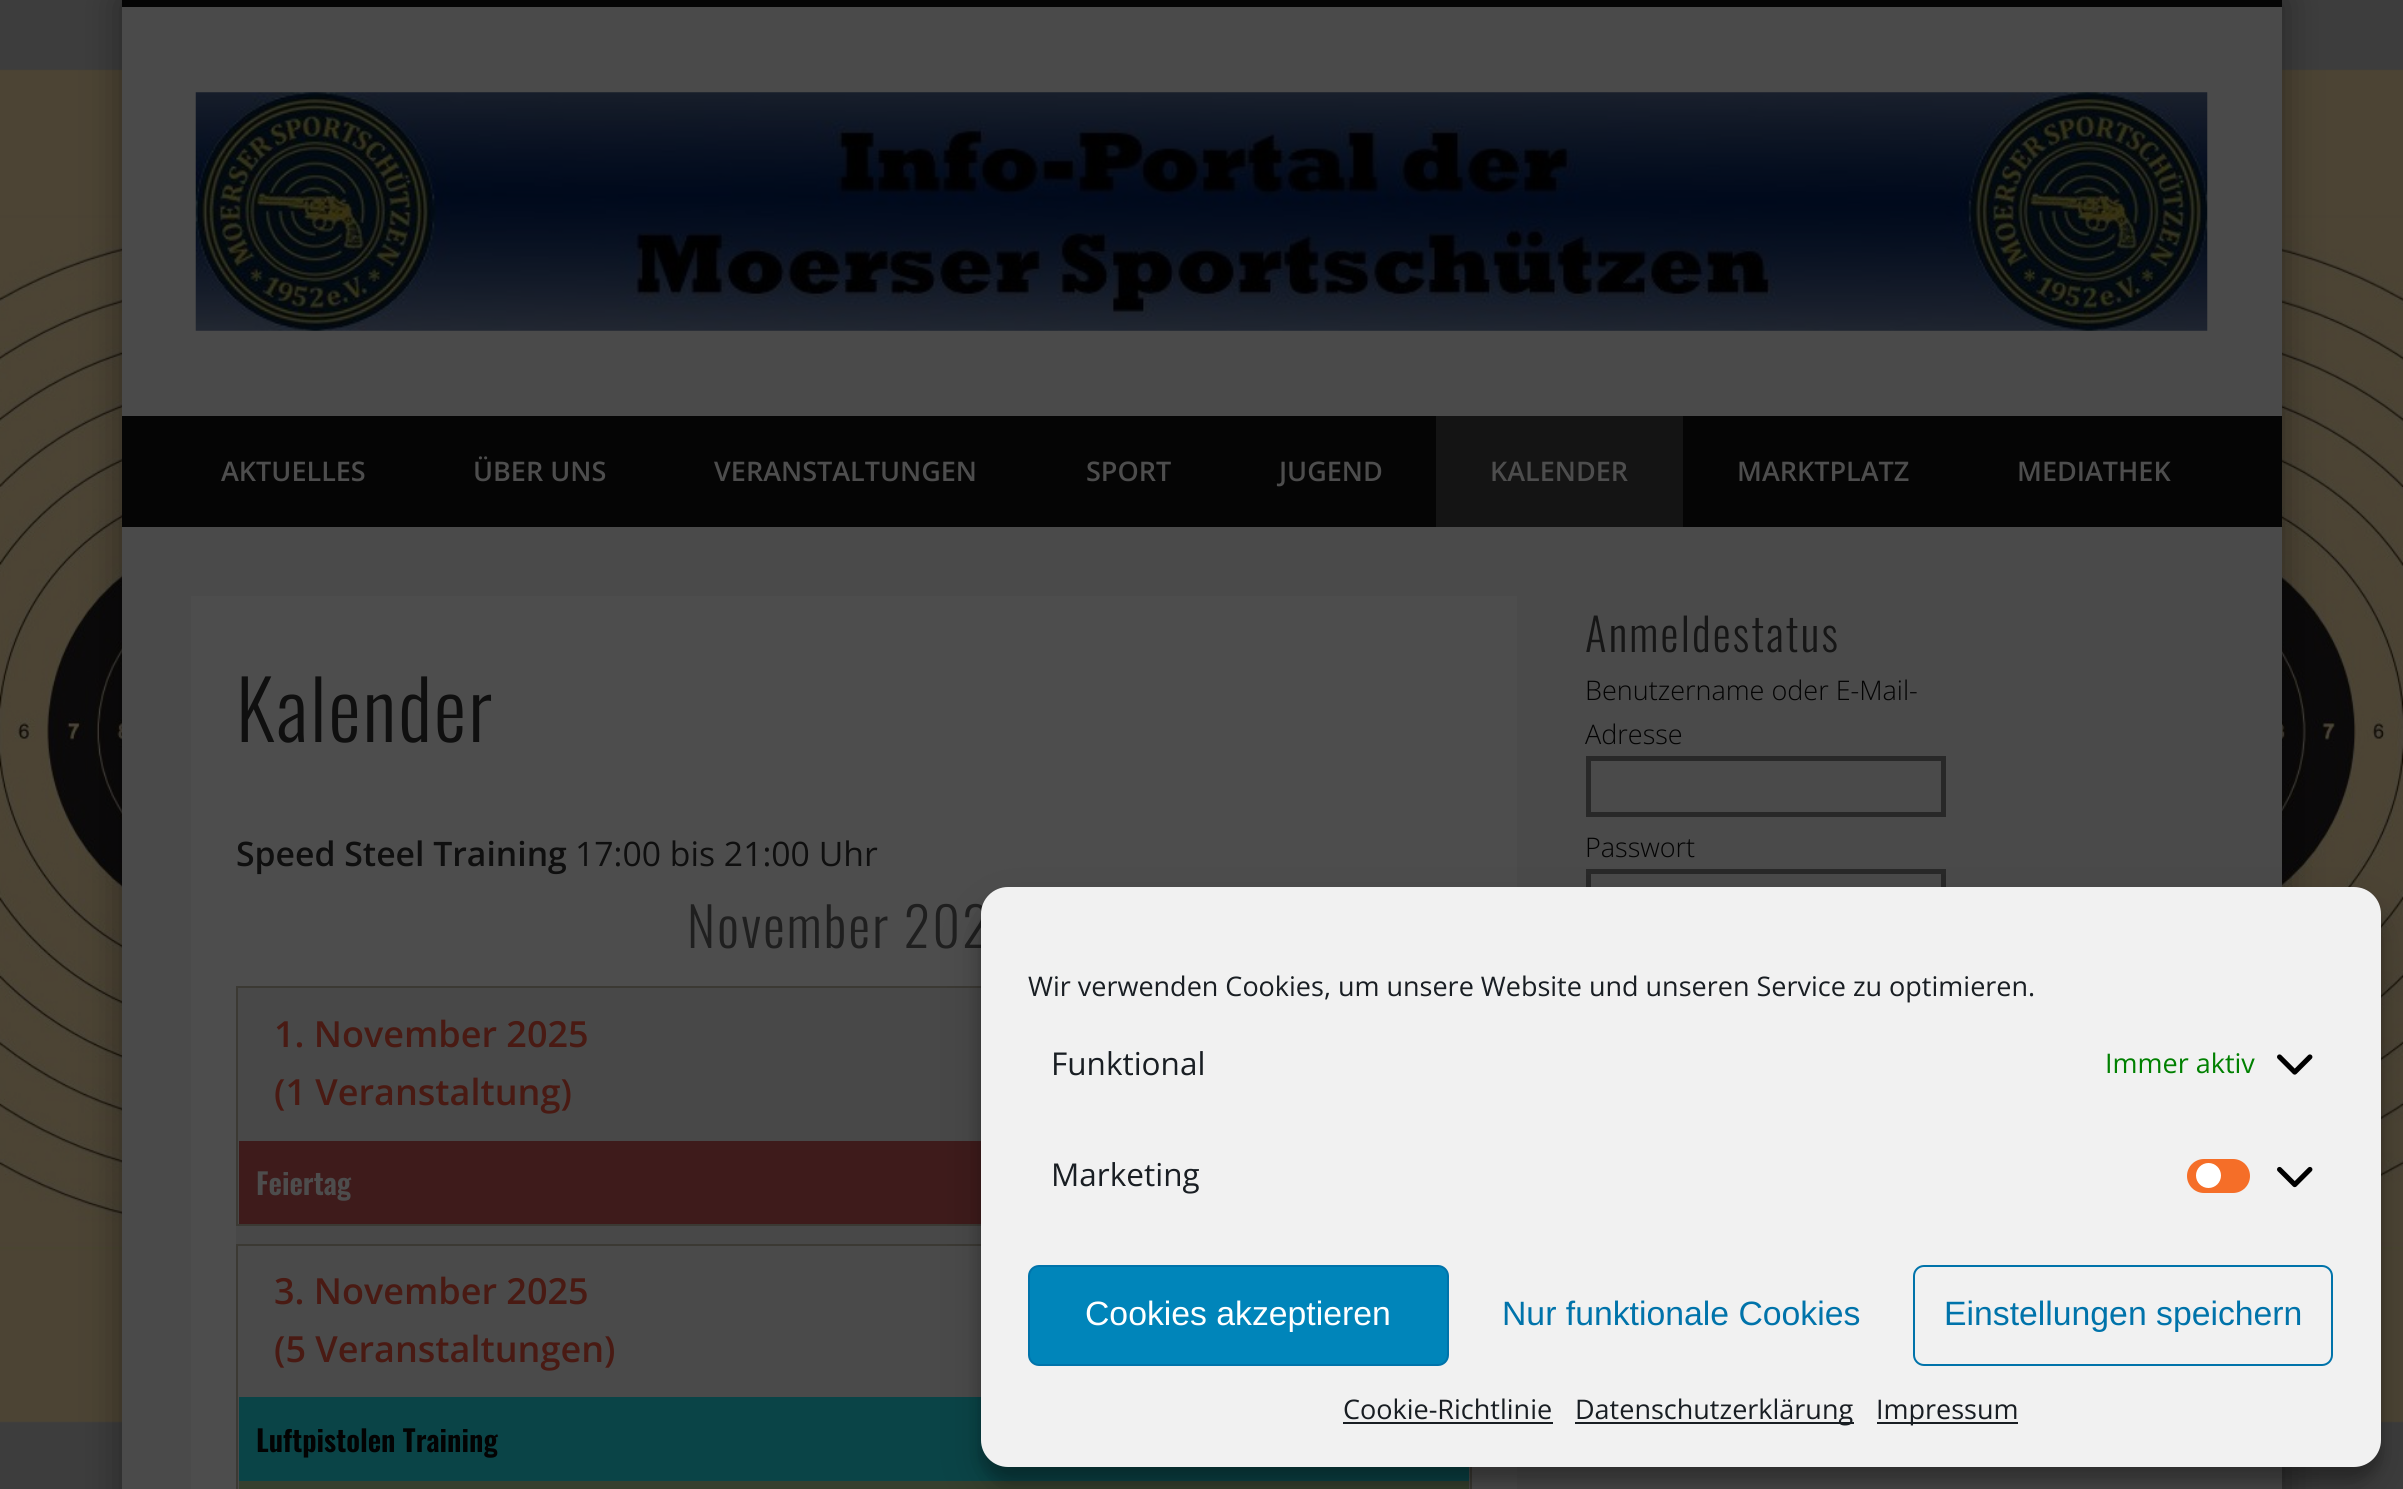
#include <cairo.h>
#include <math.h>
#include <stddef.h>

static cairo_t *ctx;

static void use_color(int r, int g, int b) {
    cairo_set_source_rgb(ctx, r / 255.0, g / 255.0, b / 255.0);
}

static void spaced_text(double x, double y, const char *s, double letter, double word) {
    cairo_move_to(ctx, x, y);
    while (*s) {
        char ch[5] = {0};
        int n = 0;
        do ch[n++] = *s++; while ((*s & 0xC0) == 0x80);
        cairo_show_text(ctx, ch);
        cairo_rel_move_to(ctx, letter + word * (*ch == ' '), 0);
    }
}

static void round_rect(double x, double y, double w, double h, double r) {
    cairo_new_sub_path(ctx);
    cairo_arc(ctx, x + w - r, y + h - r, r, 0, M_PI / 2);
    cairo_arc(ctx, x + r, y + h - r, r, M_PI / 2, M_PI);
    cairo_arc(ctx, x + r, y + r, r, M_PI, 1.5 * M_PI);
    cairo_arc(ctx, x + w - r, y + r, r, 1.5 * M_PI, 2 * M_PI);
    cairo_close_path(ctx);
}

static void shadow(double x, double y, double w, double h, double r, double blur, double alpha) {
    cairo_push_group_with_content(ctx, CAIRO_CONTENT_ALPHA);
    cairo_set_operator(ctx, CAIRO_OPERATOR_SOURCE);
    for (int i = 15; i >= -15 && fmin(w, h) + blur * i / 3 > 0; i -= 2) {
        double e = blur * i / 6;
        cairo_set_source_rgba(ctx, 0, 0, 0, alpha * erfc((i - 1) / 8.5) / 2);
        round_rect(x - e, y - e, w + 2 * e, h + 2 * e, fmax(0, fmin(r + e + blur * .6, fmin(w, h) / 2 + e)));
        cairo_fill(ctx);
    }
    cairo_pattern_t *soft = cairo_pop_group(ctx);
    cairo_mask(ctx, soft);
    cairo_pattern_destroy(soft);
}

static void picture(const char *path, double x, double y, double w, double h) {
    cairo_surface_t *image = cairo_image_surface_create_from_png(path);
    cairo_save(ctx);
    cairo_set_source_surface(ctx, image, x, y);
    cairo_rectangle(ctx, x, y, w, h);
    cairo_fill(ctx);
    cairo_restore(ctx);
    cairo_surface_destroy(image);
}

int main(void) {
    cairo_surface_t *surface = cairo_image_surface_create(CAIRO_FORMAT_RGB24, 2403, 1489);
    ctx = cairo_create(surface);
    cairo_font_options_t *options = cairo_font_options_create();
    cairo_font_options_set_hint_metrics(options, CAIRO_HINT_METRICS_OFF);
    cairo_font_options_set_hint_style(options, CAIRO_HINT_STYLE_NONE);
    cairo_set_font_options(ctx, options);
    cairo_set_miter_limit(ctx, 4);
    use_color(61, 61, 61);
    cairo_paint(ctx);
    picture("img1.png", 0, 69, 2403, 1354);
    use_color(0, 0, 0);
    shadow(122, 0, 2160, 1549, 0, 20, 0.4);
    use_color(74, 74, 74);
    cairo_rectangle(ctx, 122, 7, 2160, 1482);
    cairo_fill(ctx);
    use_color(5, 5, 5);
    cairo_rectangle(ctx, 122, 0, 2160, 7);
    cairo_fill(ctx);
    picture("img2.png", 195, 92, 2013, 239);
    cairo_rectangle(ctx, 122, 416, 2160, 111);
    cairo_fill(ctx);
    cairo_select_font_face(ctx, "Open Sans SemiBold", CAIRO_FONT_SLANT_NORMAL, CAIRO_FONT_WEIGHT_NORMAL);
    cairo_set_font_size(ctx, 27);
    use_color(77, 77, 77);
    cairo_move_to(ctx, 221, 481);
    cairo_show_text(ctx, "AKTUELLES");
    cairo_move_to(ctx, 473, 481);
    cairo_show_text(ctx, "ÜBER UNS");
    cairo_move_to(ctx, 714, 481);
    cairo_show_text(ctx, "VERANSTALTUNGEN");
    cairo_move_to(ctx, 1086, 481);
    cairo_show_text(ctx, "SPORT");
    cairo_move_to(ctx, 1279, 481);
    cairo_show_text(ctx, "JUGEND");
    use_color(20, 20, 20);
    cairo_rectangle(ctx, 1436, 416, 247, 111);
    cairo_fill(ctx);
    use_color(77, 77, 77);
    cairo_move_to(ctx, 1490, 481);
    cairo_show_text(ctx, "KALENDER");
    cairo_move_to(ctx, 1737, 481);
    cairo_show_text(ctx, "MARKTPLATZ");
    cairo_move_to(ctx, 2017, 481);
    cairo_show_text(ctx, "MEDIATHEK");
    cairo_rectangle(ctx, 191, 596, 1326, 893);
    cairo_fill(ctx);
    cairo_select_font_face(ctx, "Oswald Light", CAIRO_FONT_SLANT_NORMAL, CAIRO_FONT_WEIGHT_NORMAL);
    cairo_set_font_size(ctx, 81);
    use_color(15, 15, 15);
    spaced_text(236, 742, "Kalender", 2.25, 0);
    cairo_select_font_face(ctx, "Open Sans SemiBold", CAIRO_FONT_SLANT_NORMAL, CAIRO_FONT_WEIGHT_NORMAL);
    cairo_set_font_size(ctx, 33.75);
    cairo_move_to(ctx, 236, 866);
    cairo_show_text(ctx, "Speed Steel Training");
    cairo_select_font_face(ctx, "Open Sans", CAIRO_FONT_SLANT_NORMAL, CAIRO_FONT_WEIGHT_NORMAL);
    cairo_move_to(ctx, 575, 866);
    cairo_show_text(ctx, "17:00 bis 21:00 Uhr");
    cairo_select_font_face(ctx, "Oswald Light", CAIRO_FONT_SLANT_NORMAL, CAIRO_FONT_WEIGHT_NORMAL);
    cairo_set_font_size(ctx, 54);
    use_color(31, 31, 31);
    spaced_text(687, 948, "November 202", 2.25, 0);
    use_color(72, 72, 72);
    cairo_rectangle(ctx, 236, 988, 745, 256);
    cairo_fill(ctx);
    cairo_rectangle(ctx, 237, 987, 1234, 238);
    use_color(59, 57, 51);
    cairo_stroke(ctx);
    cairo_select_font_face(ctx, "Open Sans SemiBold", CAIRO_FONT_SLANT_NORMAL, CAIRO_FONT_WEIGHT_NORMAL);
    cairo_set_font_size(ctx, 36);
    use_color(73, 26, 19);
    cairo_move_to(ctx, 274, 1047);
    cairo_show_text(ctx, "1. November 2025");
    cairo_move_to(ctx, 274, 1105);
    cairo_show_text(ctx, "(1 Veranstaltung)");
    use_color(62, 27, 27);
    cairo_rectangle(ctx, 239, 1141, 742, 83);
    cairo_fill(ctx);
    cairo_select_font_face(ctx, "Oswald SemiBold", CAIRO_FONT_SLANT_NORMAL, CAIRO_FONT_WEIGHT_NORMAL);
    cairo_set_font_size(ctx, 29.25);
    use_color(77, 77, 77);
    cairo_move_to(ctx, 256, 1195);
    cairo_show_text(ctx, "Feiertag");
    use_color(74, 74, 74);
    cairo_rectangle(ctx, 237, 1245, 1234, 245);
    cairo_fill_preserve(ctx);
    use_color(59, 57, 51);
    cairo_stroke(ctx);
    cairo_select_font_face(ctx, "Open Sans SemiBold", CAIRO_FONT_SLANT_NORMAL, CAIRO_FONT_WEIGHT_NORMAL);
    cairo_set_font_size(ctx, 36);
    use_color(73, 26, 19);
    cairo_move_to(ctx, 274, 1304);
    cairo_show_text(ctx, "3. November 2025");
    cairo_move_to(ctx, 274, 1362);
    cairo_show_text(ctx, "(5 Veranstaltungen)");
    use_color(10, 68, 71);
    cairo_rectangle(ctx, 239, 1397, 1230, 84);
    cairo_fill(ctx);
    cairo_select_font_face(ctx, "Oswald SemiBold", CAIRO_FONT_SLANT_NORMAL, CAIRO_FONT_WEIGHT_NORMAL);
    cairo_set_font_size(ctx, 29.25);
    use_color(3, 3, 3);
    cairo_move_to(ctx, 256, 1452);
    cairo_show_text(ctx, "Luftpistolen Training");
    use_color(53, 64, 46);
    cairo_rectangle(ctx, 239, 1481, 1230, 8);
    cairo_fill(ctx);
    cairo_select_font_face(ctx, "Oswald Light", CAIRO_FONT_SLANT_NORMAL, CAIRO_FONT_WEIGHT_NORMAL);
    cairo_set_font_size(ctx, 45);
    use_color(22, 22, 22);
    spaced_text(1585, 652, "Anmeldestatus", 2.25, 0);
    cairo_select_font_face(ctx, "Open Sans Light", CAIRO_FONT_SLANT_NORMAL, CAIRO_FONT_WEIGHT_NORMAL);
    cairo_set_font_size(ctx, 27);
    use_color(3, 3, 3);
    cairo_move_to(ctx, 1585, 700);
    cairo_show_text(ctx, "Benutzername oder E-Mail-");
    cairo_move_to(ctx, 1585, 744);
    cairo_show_text(ctx, "Adresse");
    cairo_rectangle(ctx, 1588.5, 758.5, 355, 56);
    use_color(40, 40, 40);
    cairo_set_line_width(ctx, 5);
    cairo_stroke(ctx);
    use_color(3, 3, 3);
    cairo_move_to(ctx, 1585, 857);
    cairo_show_text(ctx, "Passwort");
    cairo_rectangle(ctx, 1588.5, 871.5, 355, 55);
    use_color(40, 40, 40);
    cairo_stroke(ctx);
    use_color(0, 0, 0);
    shadow(981, 900, 1400, 581, 27, 7, 0.23);
    shadow(981, 909, 1400, 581, 27, 22.5, 0.19);
    use_color(241, 241, 241);
    round_rect(982, 888, 1398, 578, 26);
    cairo_fill_preserve(ctx);
    cairo_set_line_width(ctx, 2);
    cairo_stroke(ctx);
    cairo_select_font_face(ctx, "Open Sans", CAIRO_FONT_SLANT_NORMAL, CAIRO_FONT_WEIGHT_NORMAL);
    use_color(25, 30, 35);
    cairo_move_to(ctx, 1028, 996);
    cairo_show_text(ctx, "Wir verwenden Cookies, um unsere Website und unseren Service zu optimieren.");
    cairo_set_font_size(ctx, 31.5);
    cairo_move_to(ctx, 1051, 1075);
    cairo_show_text(ctx, "Funktional");
    cairo_set_font_size(ctx, 27);
    use_color(0, 128, 0);
    cairo_move_to(ctx, 2105, 1073);
    cairo_show_text(ctx, "Immer aktiv");
    picture("img3.png", 2277, 1054, 36, 21);
    cairo_set_font_size(ctx, 31.5);
    use_color(25, 30, 35);
    cairo_move_to(ctx, 1051, 1186);
    cairo_show_text(ctx, "Marketing");
    use_color(245, 110, 40);
    round_rect(2187, 1159, 63, 34, 17);
    cairo_fill(ctx);
    use_color(255, 255, 255);
    cairo_arc(ctx, 2208.5, 1175.5, 12.5, 0, 2 * M_PI);
    cairo_fill(ctx);
    picture("img4.png", 2277, 1166, 36, 22);
    use_color(0, 133, 186);
    round_rect(1029, 1266, 419, 99, 10);
    cairo_fill_preserve(ctx);
    use_color(0, 115, 170);
    cairo_stroke(ctx);
    cairo_select_font_face(ctx, "Liberation Sans", CAIRO_FONT_SLANT_NORMAL, CAIRO_FONT_WEIGHT_NORMAL);
    cairo_set_font_size(ctx, 33.75);
    use_color(255, 255, 255);
    cairo_move_to(ctx, 1085, 1325);
    cairo_show_text(ctx, "Cookies akzeptieren");
    use_color(0, 115, 170);
    cairo_move_to(ctx, 1502, 1325);
    cairo_show_text(ctx, "Nur funktionale Cookies");
    round_rect(1914, 1266, 418, 99, 10);
    cairo_stroke(ctx);
    cairo_move_to(ctx, 1944, 1325);
    cairo_show_text(ctx, "Einstellungen speichern");
    cairo_select_font_face(ctx, "Open Sans", CAIRO_FONT_SLANT_NORMAL, CAIRO_FONT_WEIGHT_NORMAL);
    cairo_set_font_size(ctx, 27);
    use_color(25, 30, 35);
    cairo_move_to(ctx, 1343, 1419);
    cairo_show_text(ctx, "Cookie-Richtlinie");
    cairo_rectangle(ctx, 1343, 1422, 210, 2);
    cairo_fill(ctx);
    cairo_rectangle(ctx, 1575, 1422, 279, 2);
    cairo_fill(ctx);
    cairo_move_to(ctx, 1575, 1419);
    cairo_show_text(ctx, "Datenschutzerklärung");
    cairo_rectangle(ctx, 1877, 1422, 141, 2);
    cairo_fill(ctx);
    cairo_move_to(ctx, 1876, 1419);
    cairo_show_text(ctx, "Impressum");
    cairo_surface_write_to_png(surface, "result.png");
    cairo_font_options_destroy(options);
    cairo_destroy(ctx);
    cairo_surface_destroy(surface);
    return 0;
}
